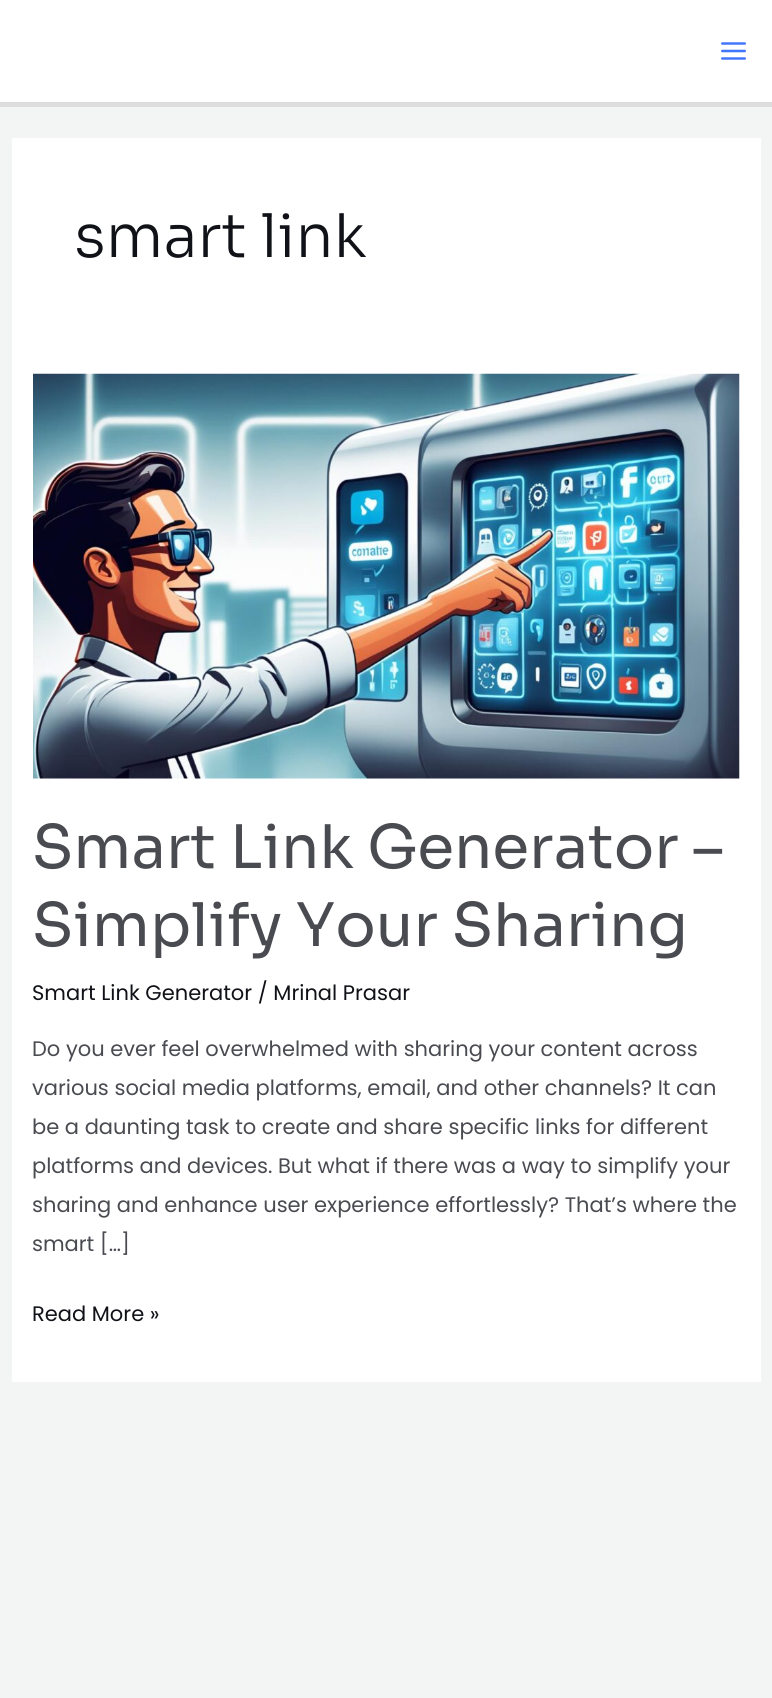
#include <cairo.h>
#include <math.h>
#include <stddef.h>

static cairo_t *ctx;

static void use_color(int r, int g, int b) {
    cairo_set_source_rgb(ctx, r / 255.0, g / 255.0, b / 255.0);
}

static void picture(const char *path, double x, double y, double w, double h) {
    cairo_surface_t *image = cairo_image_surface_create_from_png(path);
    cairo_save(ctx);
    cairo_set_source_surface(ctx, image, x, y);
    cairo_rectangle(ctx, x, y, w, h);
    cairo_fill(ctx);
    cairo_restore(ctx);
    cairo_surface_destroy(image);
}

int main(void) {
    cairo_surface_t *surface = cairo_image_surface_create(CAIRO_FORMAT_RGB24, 772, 1698);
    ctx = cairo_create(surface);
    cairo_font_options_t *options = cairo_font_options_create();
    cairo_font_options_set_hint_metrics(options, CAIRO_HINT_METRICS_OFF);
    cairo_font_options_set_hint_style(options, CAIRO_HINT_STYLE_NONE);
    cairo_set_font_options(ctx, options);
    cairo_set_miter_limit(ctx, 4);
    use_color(243, 245, 245);
    cairo_paint(ctx);
    use_color(255, 255, 255);
    cairo_rectangle(ctx, 0, 0, 772, 102);
    cairo_fill(ctx);
    use_color(221, 221, 221);
    cairo_rectangle(ctx, 0, 102, 772, 5);
    cairo_fill(ctx);
    picture("img1.png", 721, 42, 25, 18);
    use_color(255, 255, 255);
    cairo_rectangle(ctx, 12, 138, 749, 1244);
    cairo_fill(ctx);
    cairo_select_font_face(ctx, "Sora Light", CAIRO_FONT_SLANT_NORMAL, CAIRO_FONT_WEIGHT_NORMAL);
    cairo_set_font_size(ctx, 60);
    use_color(16, 18, 24);
    cairo_move_to(ctx, 74, 257);
    cairo_show_text(ctx, "smart link");
    picture("img2.png", 33, 373, 707, 406);
    cairo_select_font_face(ctx, "Sora", CAIRO_FONT_SLANT_NORMAL, CAIRO_FONT_WEIGHT_NORMAL);
    use_color(73, 75, 81);
    cairo_move_to(ctx, 32, 868);
    cairo_show_text(ctx, "Smart Link Generator –");
    cairo_move_to(ctx, 32, 946);
    cairo_show_text(ctx, "Simplify Your Sharing");
    cairo_select_font_face(ctx, "Poppins", CAIRO_FONT_SLANT_NORMAL, CAIRO_FONT_WEIGHT_NORMAL);
    cairo_set_font_size(ctx, 21);
    use_color(16, 18, 24);
    cairo_move_to(ctx, 32, 1000);
    cairo_show_text(ctx, "Smart Link Generator / Mrinal Prasar");
    use_color(73, 75, 81);
    cairo_move_to(ctx, 32, 1056);
    cairo_show_text(ctx, "Do you ever feel overwhelmed with sharing your content across");
    cairo_move_to(ctx, 32, 1095);
    cairo_show_text(ctx, "various social media platforms, email, and other channels? It can");
    cairo_move_to(ctx, 32, 1134);
    cairo_show_text(ctx, "be a daunting task to create and share specific links for different");
    cairo_move_to(ctx, 32, 1173);
    cairo_show_text(ctx, "platforms and devices. But what if there was a way to simplify your");
    cairo_move_to(ctx, 32, 1212);
    cairo_show_text(ctx, "sharing and enhance user experience effortlessly? That’s where the");
    cairo_move_to(ctx, 32, 1251);
    cairo_show_text(ctx, "smart […]");
    use_color(16, 18, 24);
    cairo_move_to(ctx, 32, 1321);
    cairo_show_text(ctx, "Read More »");
    cairo_surface_write_to_png(surface, "result.png");
    cairo_font_options_destroy(options);
    cairo_destroy(ctx);
    cairo_surface_destroy(surface);
    return 0;
}
